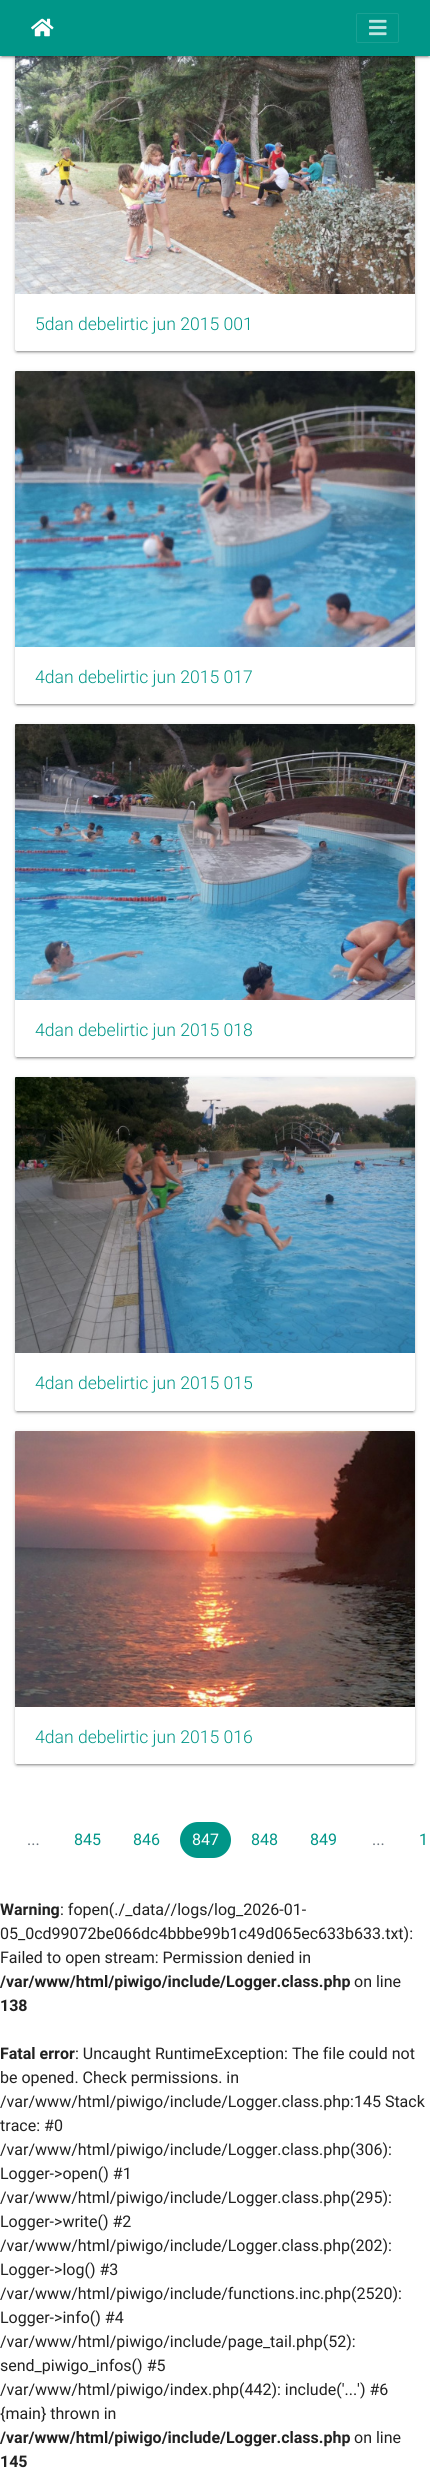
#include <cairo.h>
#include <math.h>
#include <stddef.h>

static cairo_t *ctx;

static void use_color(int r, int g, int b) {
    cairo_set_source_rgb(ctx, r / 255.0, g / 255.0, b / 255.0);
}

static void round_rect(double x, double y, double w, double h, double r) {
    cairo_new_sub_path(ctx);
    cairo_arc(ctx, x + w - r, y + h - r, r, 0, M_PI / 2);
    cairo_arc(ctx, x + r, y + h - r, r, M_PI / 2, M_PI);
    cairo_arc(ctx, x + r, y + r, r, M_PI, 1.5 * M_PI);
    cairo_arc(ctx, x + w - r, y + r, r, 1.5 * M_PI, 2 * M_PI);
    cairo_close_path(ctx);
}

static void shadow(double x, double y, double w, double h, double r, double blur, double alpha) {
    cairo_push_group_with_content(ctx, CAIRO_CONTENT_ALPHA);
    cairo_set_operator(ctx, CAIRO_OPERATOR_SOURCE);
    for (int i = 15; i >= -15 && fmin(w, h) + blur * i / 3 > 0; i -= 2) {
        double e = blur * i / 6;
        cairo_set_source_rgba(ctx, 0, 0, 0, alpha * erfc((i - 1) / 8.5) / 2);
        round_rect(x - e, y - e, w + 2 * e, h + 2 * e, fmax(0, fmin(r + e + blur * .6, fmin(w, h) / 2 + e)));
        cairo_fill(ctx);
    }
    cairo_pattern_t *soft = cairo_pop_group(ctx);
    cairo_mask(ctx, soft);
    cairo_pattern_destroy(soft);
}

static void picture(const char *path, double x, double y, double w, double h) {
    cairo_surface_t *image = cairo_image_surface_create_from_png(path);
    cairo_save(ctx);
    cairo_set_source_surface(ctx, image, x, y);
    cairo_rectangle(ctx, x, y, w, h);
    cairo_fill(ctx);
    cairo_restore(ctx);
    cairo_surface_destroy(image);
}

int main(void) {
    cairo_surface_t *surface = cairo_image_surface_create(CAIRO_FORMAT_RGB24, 430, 2474);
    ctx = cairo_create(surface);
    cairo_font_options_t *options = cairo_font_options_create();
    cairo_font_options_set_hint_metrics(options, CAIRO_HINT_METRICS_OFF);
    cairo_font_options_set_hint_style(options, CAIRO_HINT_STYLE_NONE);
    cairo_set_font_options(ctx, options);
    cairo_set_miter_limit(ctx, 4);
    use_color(255, 255, 255);
    cairo_paint(ctx);
    use_color(0, 0, 0);
    shadow(15, 19, 400, 333, 2, 2.5, 0.12);
    shadow(17, 23, 396, 329, 0, 0.5, 0.2);
    shadow(15, 20, 400, 333, 2, 1, 0.14);
    use_color(255, 255, 255);
    round_rect(15, 18, 400, 333, 2);
    cairo_fill(ctx);
    picture("img3.png", 15, 56, 400, 238);
    use_color(0, 0, 0);
    shadow(0, 1, 430, 56, 0, 2.5, 0.12);
    shadow(2, 5, 426, 52, 0, 0.5, 0.2);
    shadow(0, 2, 430, 56, 0, 1, 0.14);
    use_color(0, 150, 136);
    cairo_rectangle(ctx, 0, 0, 430, 56);
    cairo_fill(ctx);
    picture("img1.png", 31, 18, 23, 19);
    round_rect(356.5, 13.5, 42, 29, 1.5);
    use_color(26, 161, 148);
    cairo_set_line_width(ctx, 1);
    cairo_stroke(ctx);
    picture("img2.png", 369, 19, 18, 17);
    cairo_select_font_face(ctx, "Roboto Light", CAIRO_FONT_SLANT_NORMAL, CAIRO_FONT_WEIGHT_NORMAL);
    cairo_set_font_size(ctx, 17.6);
    use_color(0, 150, 136);
    cairo_move_to(ctx, 35, 330);
    cairo_show_text(ctx, "5dan debelirtic jun 2015 001");
    use_color(0, 0, 0);
    shadow(15, 372, 400, 333, 2, 2.5, 0.12);
    shadow(17, 376, 396, 329, 0, 0.5, 0.2);
    shadow(15, 373, 400, 333, 2, 1, 0.14);
    use_color(255, 255, 255);
    round_rect(15, 371, 400, 333, 2);
    cairo_fill(ctx);
    picture("img4.png", 15, 371, 400, 276);
    use_color(0, 150, 136);
    cairo_move_to(ctx, 35, 683);
    cairo_show_text(ctx, "4dan debelirtic jun 2015 017");
    use_color(0, 0, 0);
    shadow(15, 725, 400, 333, 2, 2.5, 0.12);
    shadow(17, 729, 396, 329, 0, 0.5, 0.2);
    shadow(15, 726, 400, 333, 2, 1, 0.14);
    use_color(255, 255, 255);
    round_rect(15, 724, 400, 333, 2);
    cairo_fill(ctx);
    picture("img5.png", 15, 724, 400, 276);
    use_color(0, 150, 136);
    cairo_move_to(ctx, 35, 1036);
    cairo_show_text(ctx, "4dan debelirtic jun 2015 018");
    use_color(0, 0, 0);
    shadow(15, 1078, 400, 334, 2, 2.5, 0.12);
    shadow(17, 1082, 396, 330, 0, 0.5, 0.2);
    shadow(15, 1079, 400, 334, 2, 1, 0.14);
    use_color(255, 255, 255);
    round_rect(15, 1077, 400, 334, 2);
    cairo_fill(ctx);
    picture("img6.png", 15, 1077, 400, 276);
    use_color(0, 150, 136);
    cairo_move_to(ctx, 35, 1389);
    cairo_show_text(ctx, "4dan debelirtic jun 2015 015");
    use_color(0, 0, 0);
    shadow(15, 1432, 400, 333, 2, 2.5, 0.12);
    shadow(17, 1436, 396, 329, 0, 0.5, 0.2);
    shadow(15, 1433, 400, 333, 2, 1, 0.14);
    use_color(255, 255, 255);
    round_rect(15, 1431, 400, 333, 2);
    cairo_fill(ctx);
    picture("img7.png", 15, 1431, 400, 276);
    use_color(0, 150, 136);
    cairo_move_to(ctx, 35, 1743);
    cairo_show_text(ctx, "4dan debelirtic jun 2015 016");
    cairo_select_font_face(ctx, "Roboto", CAIRO_FONT_SLANT_NORMAL, CAIRO_FONT_WEIGHT_NORMAL);
    cairo_set_font_size(ctx, 16);
    use_color(108, 117, 125);
    cairo_move_to(ctx, 27, 1845);
    cairo_show_text(ctx, "...");
    use_color(0, 150, 136);
    cairo_move_to(ctx, 74, 1845);
    cairo_show_text(ctx, "845");
    cairo_move_to(ctx, 133, 1845);
    cairo_show_text(ctx, "846");
    round_rect(180, 1822, 51, 36, 18);
    cairo_fill(ctx);
    use_color(255, 255, 255);
    cairo_move_to(ctx, 192, 1845);
    cairo_show_text(ctx, "847");
    use_color(0, 150, 136);
    cairo_move_to(ctx, 251, 1845);
    cairo_show_text(ctx, "848");
    cairo_move_to(ctx, 310, 1845);
    cairo_show_text(ctx, "849");
    use_color(108, 117, 125);
    cairo_move_to(ctx, 372, 1845);
    cairo_show_text(ctx, "...");
    use_color(0, 150, 136);
    cairo_move_to(ctx, 419, 1845);
    cairo_show_text(ctx, "1");
    cairo_select_font_face(ctx, "Roboto", CAIRO_FONT_SLANT_NORMAL, CAIRO_FONT_WEIGHT_BOLD);
    use_color(33, 33, 33);
    cairo_move_to(ctx, 0, 1915);
    cairo_show_text(ctx, "Warning");
    cairo_select_font_face(ctx, "Roboto", CAIRO_FONT_SLANT_NORMAL, CAIRO_FONT_WEIGHT_NORMAL);
    cairo_move_to(ctx, 60, 1915);
    cairo_show_text(ctx, ": fopen(./_data//logs/log_2026-01-");
    cairo_move_to(ctx, 0, 1939);
    cairo_show_text(ctx, "05_0cd99072be066dc4bbbe99b1c49d065ec633b633.txt):");
    cairo_move_to(ctx, 0, 1963);
    cairo_show_text(ctx, "Failed to open stream: Permission denied in");
    cairo_select_font_face(ctx, "Roboto", CAIRO_FONT_SLANT_NORMAL, CAIRO_FONT_WEIGHT_BOLD);
    cairo_move_to(ctx, 0, 1987);
    cairo_show_text(ctx, "/var/www/html/piwigo/include/Logger.class.php");
    cairo_select_font_face(ctx, "Roboto", CAIRO_FONT_SLANT_NORMAL, CAIRO_FONT_WEIGHT_NORMAL);
    cairo_move_to(ctx, 354, 1987);
    cairo_show_text(ctx, "on line");
    cairo_select_font_face(ctx, "Roboto", CAIRO_FONT_SLANT_NORMAL, CAIRO_FONT_WEIGHT_BOLD);
    cairo_move_to(ctx, 0, 2011);
    cairo_show_text(ctx, "138");
    cairo_move_to(ctx, 0, 2059);
    cairo_show_text(ctx, "Fatal error");
    cairo_select_font_face(ctx, "Roboto", CAIRO_FONT_SLANT_NORMAL, CAIRO_FONT_WEIGHT_NORMAL);
    cairo_move_to(ctx, 75, 2059);
    cairo_show_text(ctx, ": Uncaught RuntimeException: The file could not");
    cairo_move_to(ctx, 0, 2083);
    cairo_show_text(ctx, "be opened. Check permissions. in");
    cairo_move_to(ctx, 0, 2107);
    cairo_show_text(ctx, "/var/www/html/piwigo/include/Logger.class.php:145 Stack");
    cairo_move_to(ctx, 0, 2131);
    cairo_show_text(ctx, "trace: #0");
    cairo_move_to(ctx, 0, 2155);
    cairo_show_text(ctx, "/var/www/html/piwigo/include/Logger.class.php(306):");
    cairo_move_to(ctx, 0, 2179);
    cairo_show_text(ctx, "Logger->open() #1");
    cairo_move_to(ctx, 0, 2203);
    cairo_show_text(ctx, "/var/www/html/piwigo/include/Logger.class.php(295):");
    cairo_move_to(ctx, 0, 2227);
    cairo_show_text(ctx, "Logger->write() #2");
    cairo_move_to(ctx, 0, 2251);
    cairo_show_text(ctx, "/var/www/html/piwigo/include/Logger.class.php(202):");
    cairo_move_to(ctx, 0, 2275);
    cairo_show_text(ctx, "Logger->log() #3");
    cairo_move_to(ctx, 0, 2299);
    cairo_show_text(ctx, "/var/www/html/piwigo/include/functions.inc.php(2520):");
    cairo_move_to(ctx, 0, 2323);
    cairo_show_text(ctx, "Logger->info() #4");
    cairo_move_to(ctx, 0, 2347);
    cairo_show_text(ctx, "/var/www/html/piwigo/include/page_tail.php(52):");
    cairo_move_to(ctx, 0, 2371);
    cairo_show_text(ctx, "send_piwigo_infos() #5");
    cairo_move_to(ctx, 0, 2395);
    cairo_show_text(ctx, "/var/www/html/piwigo/index.php(442): include('...') #6");
    cairo_move_to(ctx, 0, 2419);
    cairo_show_text(ctx, "{main} thrown in");
    cairo_select_font_face(ctx, "Roboto", CAIRO_FONT_SLANT_NORMAL, CAIRO_FONT_WEIGHT_BOLD);
    cairo_move_to(ctx, 0, 2443);
    cairo_show_text(ctx, "/var/www/html/piwigo/include/Logger.class.php");
    cairo_select_font_face(ctx, "Roboto", CAIRO_FONT_SLANT_NORMAL, CAIRO_FONT_WEIGHT_NORMAL);
    cairo_move_to(ctx, 354, 2443);
    cairo_show_text(ctx, "on line");
    cairo_select_font_face(ctx, "Roboto", CAIRO_FONT_SLANT_NORMAL, CAIRO_FONT_WEIGHT_BOLD);
    cairo_move_to(ctx, 0, 2467);
    cairo_show_text(ctx, "145");
    cairo_surface_write_to_png(surface, "result.png");
    cairo_font_options_destroy(options);
    cairo_destroy(ctx);
    cairo_surface_destroy(surface);
    return 0;
}
